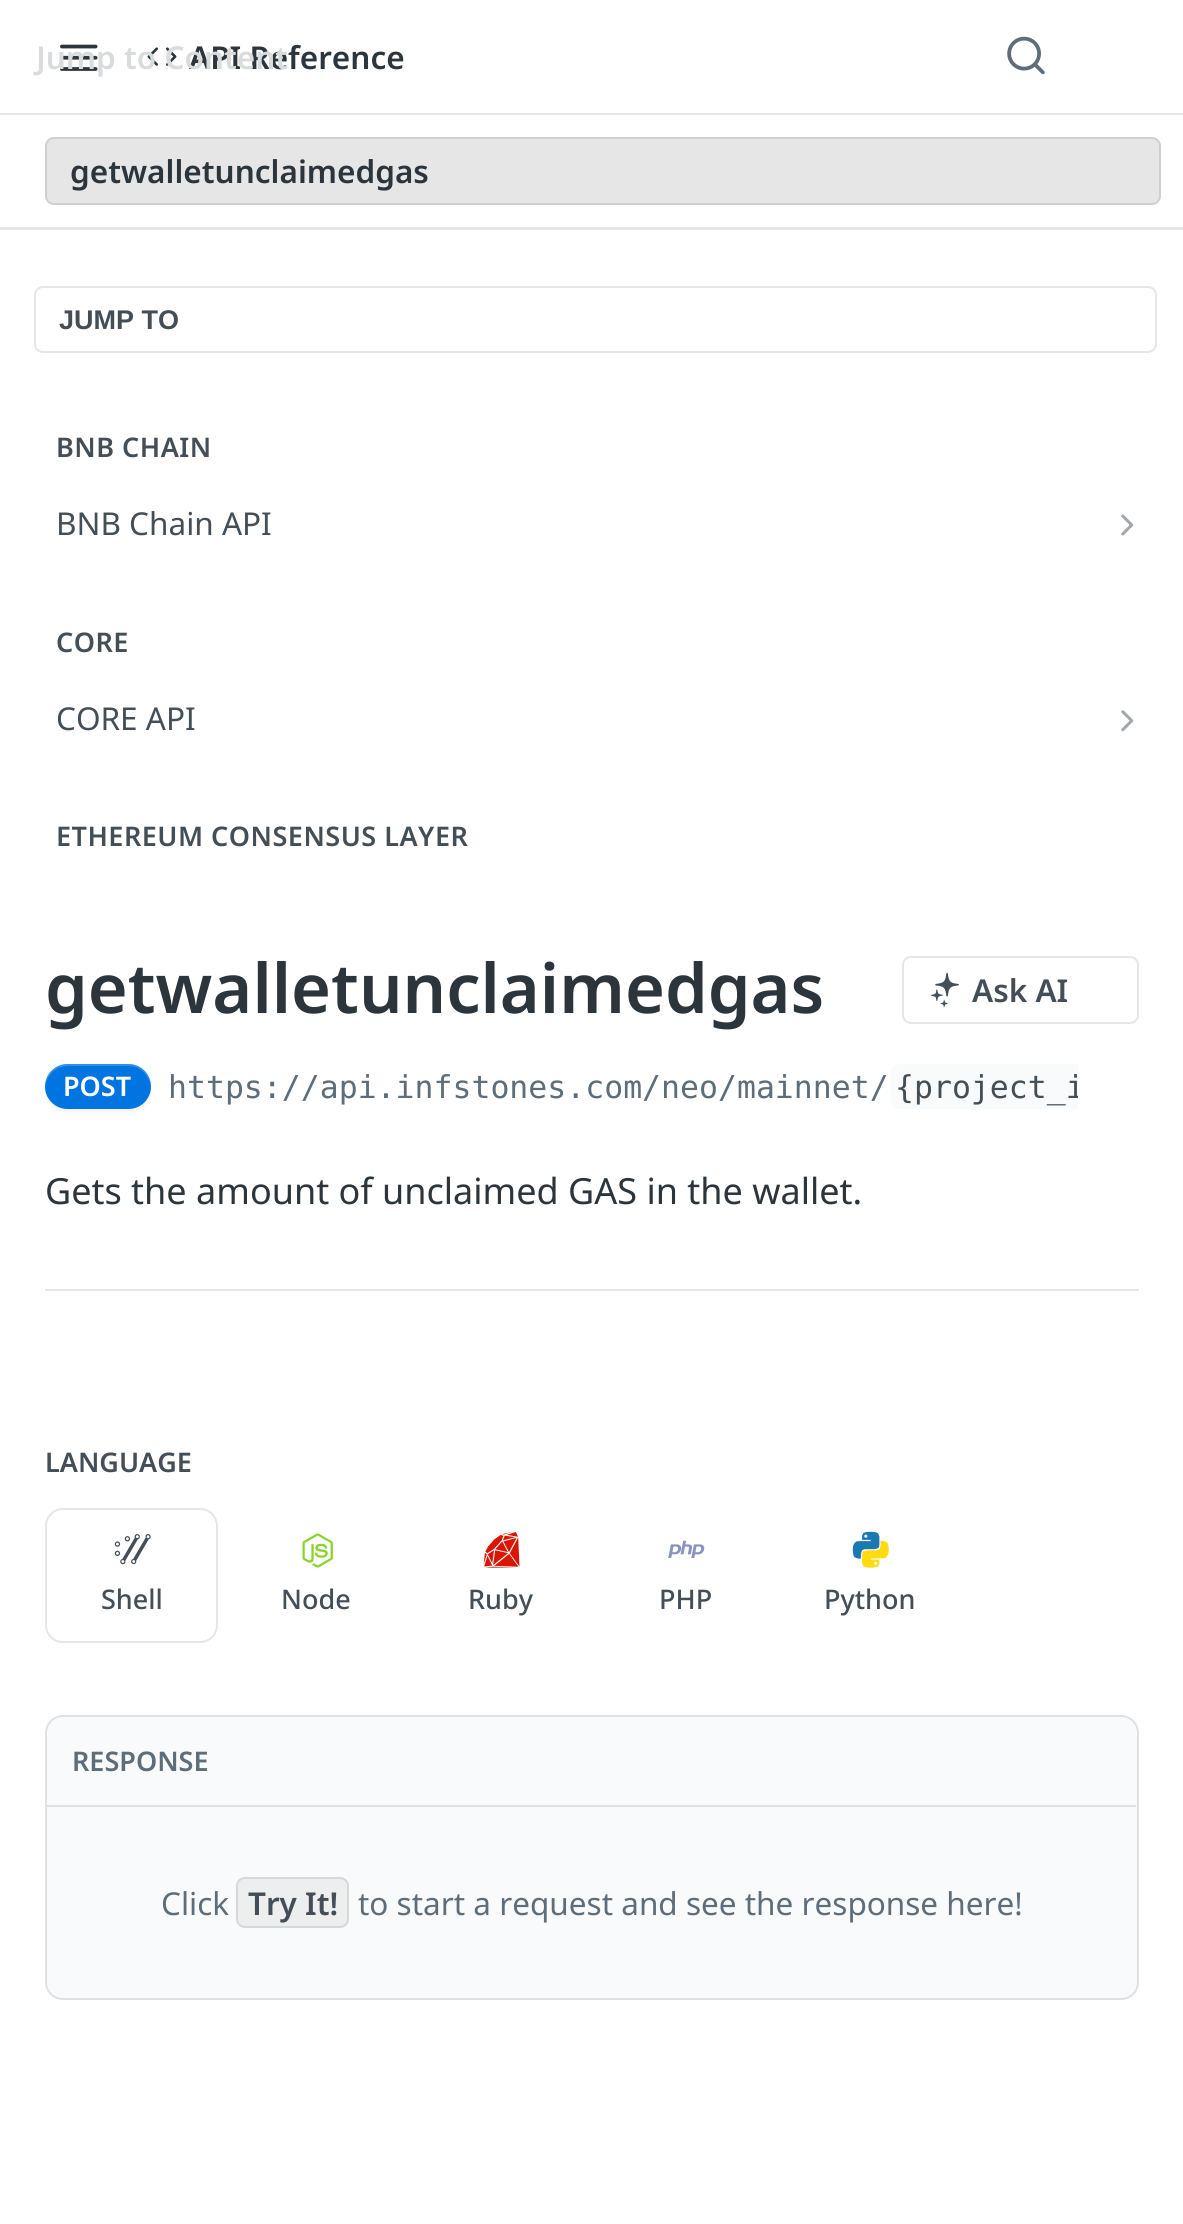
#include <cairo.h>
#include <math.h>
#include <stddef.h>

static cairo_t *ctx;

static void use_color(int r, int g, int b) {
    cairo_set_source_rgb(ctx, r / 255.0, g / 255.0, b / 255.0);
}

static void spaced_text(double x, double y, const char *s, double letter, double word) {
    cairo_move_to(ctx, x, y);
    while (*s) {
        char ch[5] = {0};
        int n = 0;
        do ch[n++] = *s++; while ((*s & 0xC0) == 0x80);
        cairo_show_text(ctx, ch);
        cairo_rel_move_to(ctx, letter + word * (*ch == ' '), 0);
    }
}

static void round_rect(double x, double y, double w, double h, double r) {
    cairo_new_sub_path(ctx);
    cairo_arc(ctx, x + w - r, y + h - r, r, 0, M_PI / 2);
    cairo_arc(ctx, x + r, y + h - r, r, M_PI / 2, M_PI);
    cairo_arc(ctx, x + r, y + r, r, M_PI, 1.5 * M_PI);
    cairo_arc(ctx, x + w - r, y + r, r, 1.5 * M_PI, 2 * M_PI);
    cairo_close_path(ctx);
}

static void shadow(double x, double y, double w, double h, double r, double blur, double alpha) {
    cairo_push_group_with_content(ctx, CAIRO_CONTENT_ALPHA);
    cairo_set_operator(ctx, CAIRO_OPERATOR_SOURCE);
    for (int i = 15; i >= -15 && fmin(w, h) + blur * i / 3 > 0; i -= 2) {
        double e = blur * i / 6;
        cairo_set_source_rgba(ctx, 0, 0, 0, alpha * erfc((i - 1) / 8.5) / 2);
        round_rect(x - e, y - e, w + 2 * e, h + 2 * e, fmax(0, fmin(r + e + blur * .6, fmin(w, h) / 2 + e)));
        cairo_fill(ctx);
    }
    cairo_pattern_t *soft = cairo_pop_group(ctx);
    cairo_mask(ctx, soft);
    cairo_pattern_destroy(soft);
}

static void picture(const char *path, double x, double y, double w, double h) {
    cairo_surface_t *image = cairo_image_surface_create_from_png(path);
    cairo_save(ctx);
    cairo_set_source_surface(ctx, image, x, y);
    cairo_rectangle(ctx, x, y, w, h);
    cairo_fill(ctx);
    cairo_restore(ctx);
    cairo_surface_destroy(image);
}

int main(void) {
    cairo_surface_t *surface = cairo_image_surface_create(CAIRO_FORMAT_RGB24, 1183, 2224);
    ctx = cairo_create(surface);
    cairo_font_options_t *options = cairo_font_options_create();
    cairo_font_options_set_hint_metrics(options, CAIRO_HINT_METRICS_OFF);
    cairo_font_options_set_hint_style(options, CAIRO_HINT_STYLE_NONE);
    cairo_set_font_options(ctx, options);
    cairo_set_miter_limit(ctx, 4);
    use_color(255, 255, 255);
    cairo_paint(ctx);
    use_color(230, 230, 230);
    cairo_new_path(ctx);
    cairo_move_to(ctx, 0, 227);
    cairo_line_to(ctx, 0, 230);
    cairo_line_to(ctx, 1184, 230);
    cairo_line_to(ctx, 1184, 2);
    cairo_line_to(ctx, 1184, 227);
    cairo_close_path(ctx);
    cairo_fill(ctx);
    cairo_rectangle(ctx, 0, 113, 1183, 2);
    cairo_fill(ctx);
    picture("img1.png", 60, 44, 38, 27);
    picture("img2.png", 147, 47, 30, 19);
    cairo_select_font_face(ctx, "Noto Sans SemiBold", CAIRO_FONT_SLANT_NORMAL, CAIRO_FONT_WEIGHT_NORMAL);
    cairo_set_font_size(ctx, 31.5);
    use_color(43, 53, 59);
    cairo_move_to(ctx, 189, 69);
    cairo_show_text(ctx, "API Reference");
    use_color(217, 219, 220);
    cairo_move_to(ctx, 36, 69);
    cairo_show_text(ctx, "Jump to Content");
    picture("img3.png", 1007, 36, 38, 39);
    use_color(230, 230, 230);
    round_rect(45, 137, 1116, 68, 9);
    cairo_fill(ctx);
    round_rect(46, 138, 1114, 66, 8);
    cairo_set_source_rgba(ctx, 0, 0, 0, 0.1);
    cairo_stroke(ctx);
    use_color(43, 53, 59);
    cairo_move_to(ctx, 70, 183);
    cairo_show_text(ctx, "getwalletunclaimedgas");
    round_rect(35, 287, 1121, 65, 8);
    use_color(230, 230, 230);
    cairo_stroke(ctx);
    cairo_select_font_face(ctx, "Liberation Sans", CAIRO_FONT_SLANT_NORMAL, CAIRO_FONT_WEIGHT_BOLD);
    cairo_set_font_size(ctx, 27);
    use_color(67, 78, 86);
    cairo_move_to(ctx, 59, 329);
    cairo_show_text(ctx, "JUMP TO");
    cairo_select_font_face(ctx, "Noto Sans SemiBold", CAIRO_FONT_SLANT_NORMAL, CAIRO_FONT_WEIGHT_NORMAL);
    spaced_text(56, 457, "BNB CHAIN", 0.5, 0);
    cairo_select_font_face(ctx, "Noto Sans", CAIRO_FONT_SLANT_NORMAL, CAIRO_FONT_WEIGHT_NORMAL);
    cairo_set_font_size(ctx, 31.5);
    cairo_move_to(ctx, 56, 535);
    cairo_show_text(ctx, "BNB Chain API");
    picture("img4.png", 1121, 514, 13, 22);
    cairo_select_font_face(ctx, "Noto Sans SemiBold", CAIRO_FONT_SLANT_NORMAL, CAIRO_FONT_WEIGHT_NORMAL);
    cairo_set_font_size(ctx, 27);
    spaced_text(56, 652, "CORE", 0.5, 0);
    cairo_select_font_face(ctx, "Noto Sans", CAIRO_FONT_SLANT_NORMAL, CAIRO_FONT_WEIGHT_NORMAL);
    cairo_set_font_size(ctx, 31.5);
    cairo_move_to(ctx, 56, 730);
    cairo_show_text(ctx, "CORE API");
    picture("img5.png", 1121, 710, 13, 22);
    cairo_select_font_face(ctx, "Noto Sans SemiBold", CAIRO_FONT_SLANT_NORMAL, CAIRO_FONT_WEIGHT_NORMAL);
    cairo_set_font_size(ctx, 27);
    spaced_text(56, 846, "ETHEREUM CONSENSUS LAYER", 0.5, 0);
    use_color(230, 230, 230);
    cairo_rectangle(ctx, 45, 1289, 1094, 2);
    cairo_fill(ctx);
    cairo_set_font_size(ctx, 68.4);
    use_color(43, 53, 59);
    cairo_move_to(ctx, 45, 1013);
    cairo_show_text(ctx, "getwalletunclaimedgas");
    round_rect(903, 957, 235, 66, 8);
    use_color(230, 230, 230);
    cairo_stroke(ctx);
    picture("img6.png", 931, 972, 28, 36);
    cairo_set_font_size(ctx, 31.5);
    use_color(67, 78, 86);
    cairo_move_to(ctx, 972, 1002);
    cairo_show_text(ctx, "Ask AI");
    use_color(0, 0, 0);
    shadow(45, 1067, 106, 45, 22.5, 2, 0.05);
    use_color(0, 116, 225);
    round_rect(45, 1064, 106, 45, 22.5);
    cairo_fill(ctx);
    cairo_set_source_rgba(ctx, 1, 1, 1, 0.2);
    cairo_new_path(ctx);
    cairo_move_to(ctx, 68, 1066);
    cairo_line_to(ctx, 128, 1066);
    cairo_curve_to(ctx, 141, 1066, 150, 1076, 151, 1088);
    cairo_line_to(ctx, 151, 1086);
    cairo_curve_to(ctx, 151, 1074, 141, 1064, 128, 1064);
    cairo_line_to(ctx, 68, 1064);
    cairo_curve_to(ctx, 55, 1064, 45, 1074, 45, 1086);
    cairo_line_to(ctx, 45, 1088);
    cairo_curve_to(ctx, 46, 1076, 55, 1066, 68, 1066);
    cairo_close_path(ctx);
    cairo_fill(ctx);
    cairo_set_font_size(ctx, 27);
    use_color(255, 255, 255);
    cairo_move_to(ctx, 63, 1096);
    cairo_show_text(ctx, "POST");
    cairo_select_font_face(ctx, "DejaVu Sans Mono", CAIRO_FONT_SLANT_NORMAL, CAIRO_FONT_WEIGHT_NORMAL);
    cairo_set_font_size(ctx, 31.5);
    use_color(93, 109, 121);
    cairo_move_to(ctx, 168, 1098);
    cairo_show_text(ctx, "https://api.infstones.com/neo/mainnet/");
    use_color(249, 250, 251);
    cairo_new_path(ctx);
    cairo_move_to(ctx, 900, 1064);
    cairo_line_to(ctx, 1078, 1064);
    cairo_line_to(ctx, 1078, 1109);
    cairo_line_to(ctx, 900, 1109);
    cairo_curve_to(ctx, 895, 1109, 891, 1105, 891, 1100);
    cairo_line_to(ctx, 891, 1073);
    cairo_curve_to(ctx, 891, 1068, 895, 1064, 900, 1064);
    cairo_close_path(ctx);
    cairo_fill(ctx);
    cairo_save(ctx);
    cairo_rectangle(ctx, 169, 1064, 909, 45);
    cairo_clip(ctx);
    use_color(67, 78, 86);
    cairo_move_to(ctx, 895, 1098);
    cairo_show_text(ctx, "{project_i");
    cairo_restore(ctx);
    cairo_select_font_face(ctx, "Noto Sans", CAIRO_FONT_SLANT_NORMAL, CAIRO_FONT_WEIGHT_NORMAL);
    cairo_set_font_size(ctx, 36);
    use_color(43, 53, 59);
    cairo_move_to(ctx, 45, 1204);
    cairo_show_text(ctx, "Gets the amount of unclaimed GAS in the wallet.");
    cairo_select_font_face(ctx, "Noto Sans SemiBold", CAIRO_FONT_SLANT_NORMAL, CAIRO_FONT_WEIGHT_NORMAL);
    cairo_set_font_size(ctx, 27);
    use_color(67, 78, 86);
    cairo_move_to(ctx, 45, 1472);
    cairo_show_text(ctx, "LANGUAGE");
    round_rect(46, 1509, 171, 133, 17);
    use_color(230, 230, 230);
    cairo_stroke(ctx);
    picture("img7.png", 114, 1534, 37, 31);
    cairo_select_font_face(ctx, "Noto Sans Medium", CAIRO_FONT_SLANT_NORMAL, CAIRO_FONT_WEIGHT_NORMAL);
    use_color(67, 78, 86);
    cairo_move_to(ctx, 101, 1609);
    cairo_show_text(ctx, "Shell");
    picture("img8.png", 302, 1533, 31, 35);
    cairo_move_to(ctx, 281, 1609);
    cairo_show_text(ctx, "Node");
    picture("img9.png", 483, 1532, 37, 36);
    cairo_move_to(ctx, 468, 1609);
    cairo_show_text(ctx, "Ruby");
    picture("img10.png", 668, 1540, 37, 18);
    cairo_move_to(ctx, 659, 1609);
    cairo_show_text(ctx, "PHP");
    picture("img11.png", 852, 1531, 28, 28);
    picture("img12.png", 862, 1540, 27, 28);
    cairo_move_to(ctx, 824, 1609);
    cairo_show_text(ctx, "Python");
    use_color(249, 250, 251);
    round_rect(46, 1716, 1092, 283, 17);
    cairo_fill_preserve(ctx);
    use_color(224, 225, 226);
    cairo_stroke(ctx);
    cairo_rectangle(ctx, 47, 1805, 1089, 2);
    cairo_fill(ctx);
    cairo_select_font_face(ctx, "Noto Sans SemiBold", CAIRO_FONT_SLANT_NORMAL, CAIRO_FONT_WEIGHT_NORMAL);
    use_color(93, 109, 121);
    cairo_move_to(ctx, 72, 1771);
    cairo_show_text(ctx, "RESPONSE");
    cairo_select_font_face(ctx, "Noto Sans", CAIRO_FONT_SLANT_NORMAL, CAIRO_FONT_WEIGHT_NORMAL);
    cairo_set_font_size(ctx, 31.5);
    cairo_move_to(ctx, 161, 1915);
    cairo_show_text(ctx, "Click");
    use_color(237, 238, 238);
    round_rect(236, 1877, 113, 51, 9);
    cairo_fill(ctx);
    round_rect(237, 1878, 111, 49, 8);
    cairo_set_source_rgba(ctx, 0, 0, 0, 0.1);
    cairo_stroke(ctx);
    cairo_select_font_face(ctx, "Noto Sans SemiBold", CAIRO_FONT_SLANT_NORMAL, CAIRO_FONT_WEIGHT_NORMAL);
    use_color(67, 78, 86);
    cairo_move_to(ctx, 248, 1915);
    cairo_show_text(ctx, "Try It!");
    cairo_select_font_face(ctx, "Noto Sans", CAIRO_FONT_SLANT_NORMAL, CAIRO_FONT_WEIGHT_NORMAL);
    use_color(93, 109, 121);
    cairo_move_to(ctx, 358, 1915);
    cairo_show_text(ctx, "to start a request and see the response here!");
    cairo_surface_write_to_png(surface, "result.png");
    cairo_font_options_destroy(options);
    cairo_destroy(ctx);
    cairo_surface_destroy(surface);
    return 0;
}
